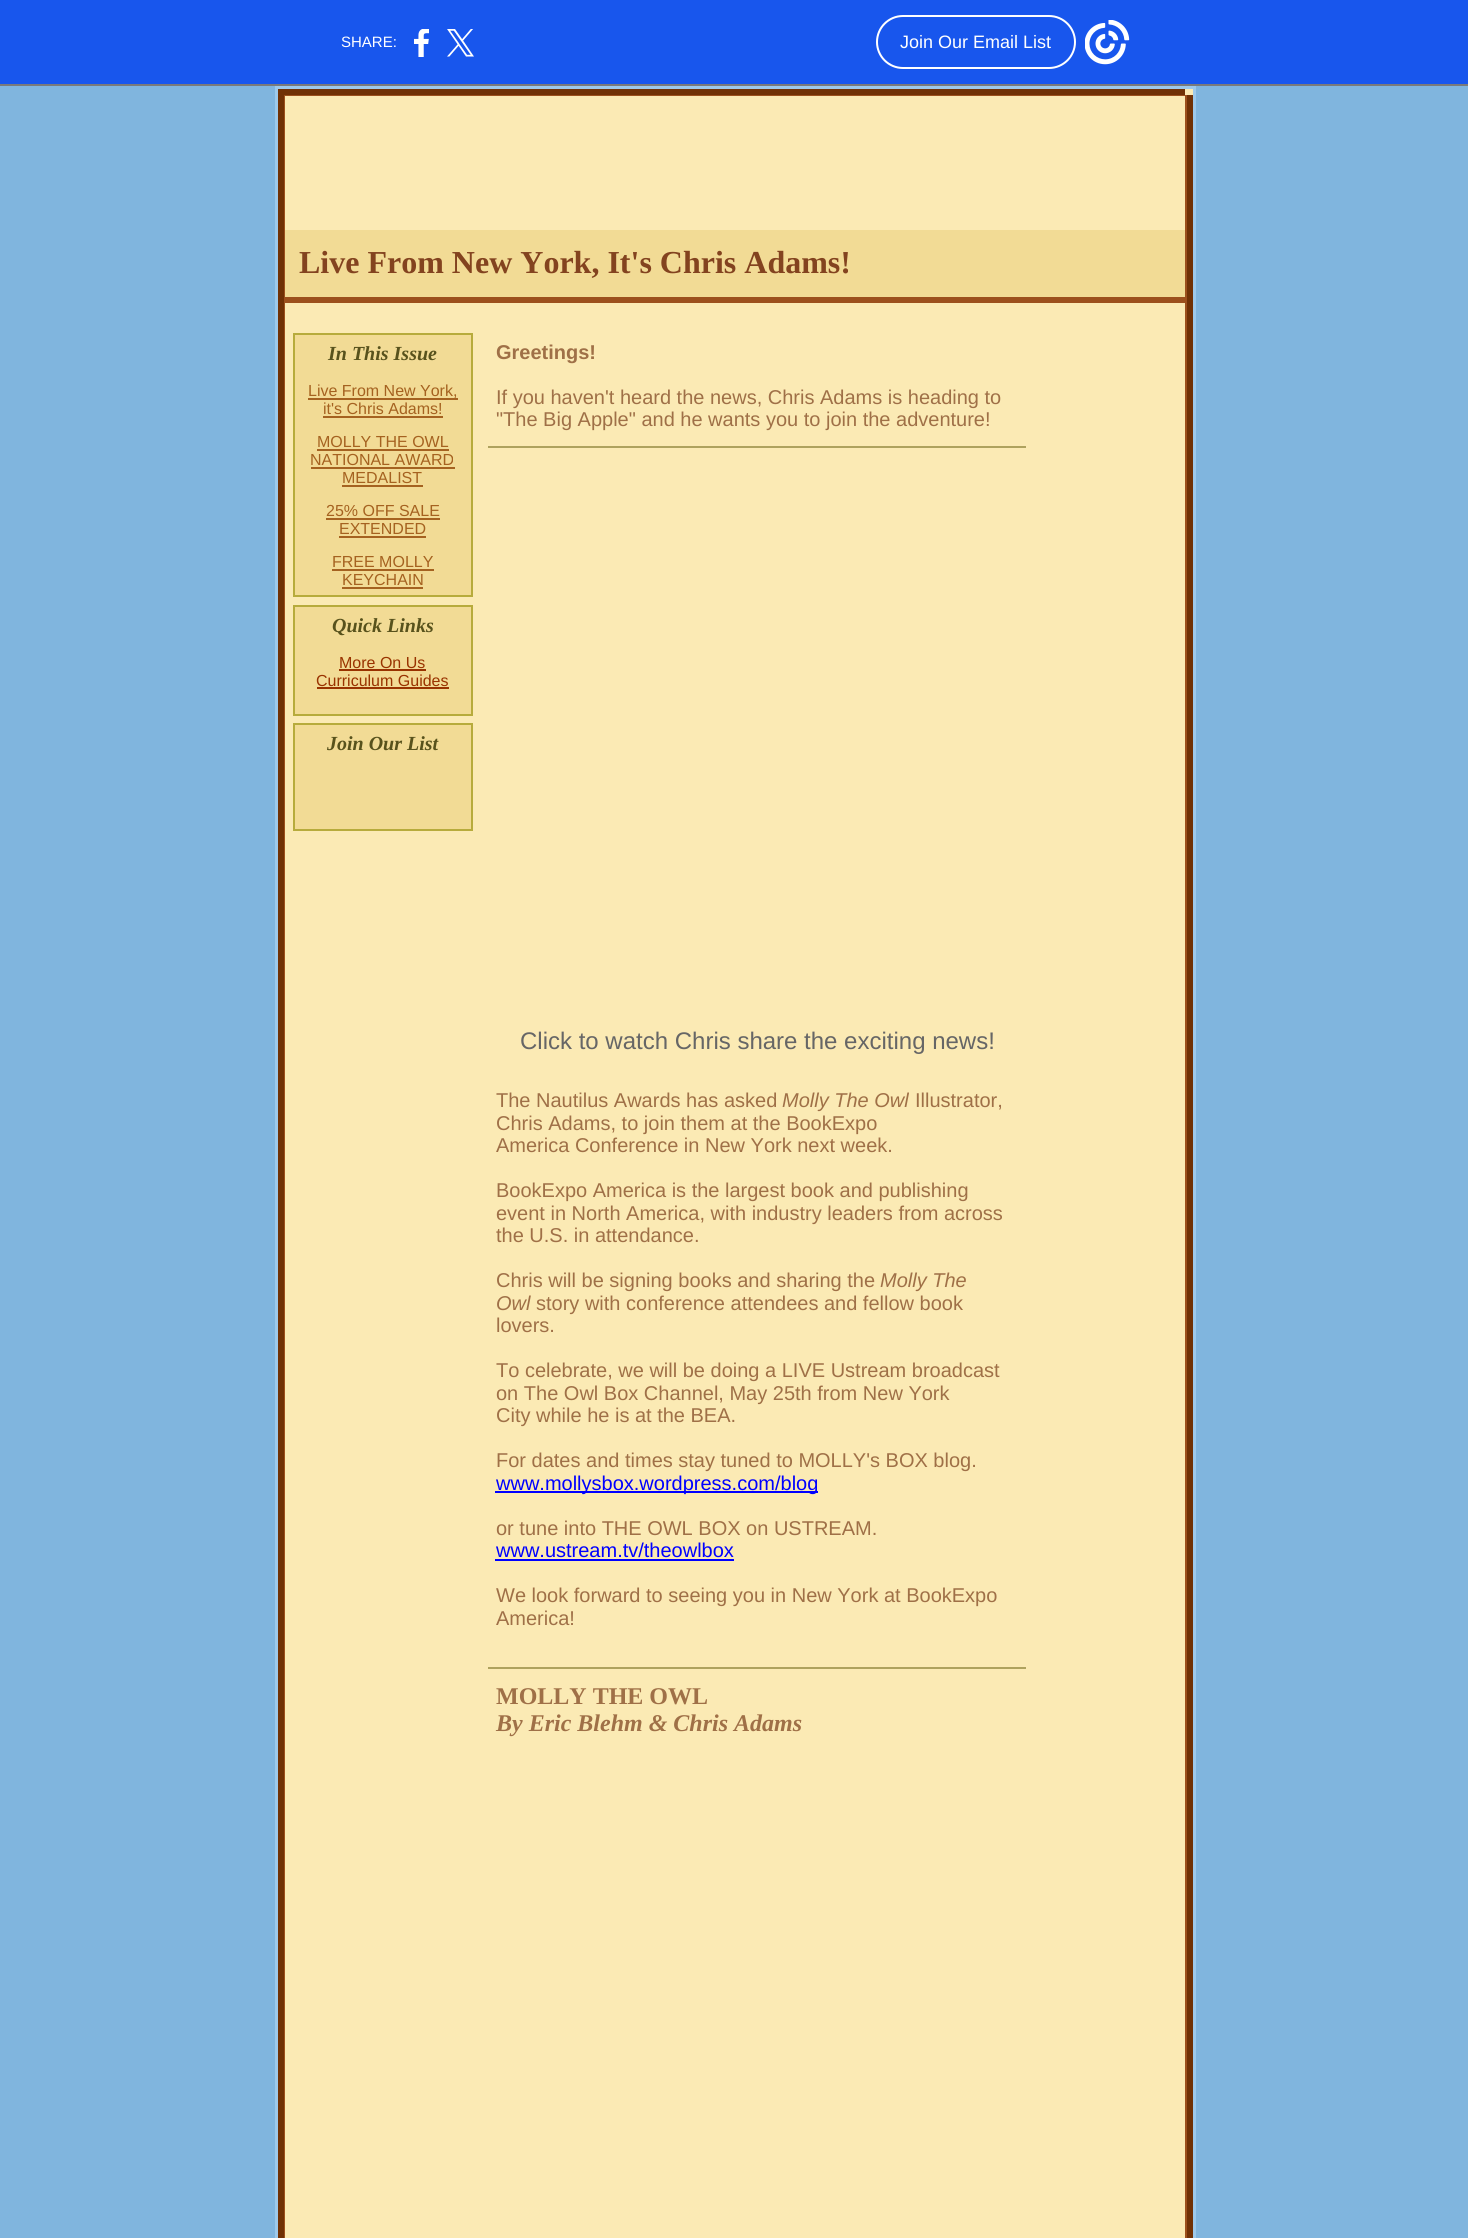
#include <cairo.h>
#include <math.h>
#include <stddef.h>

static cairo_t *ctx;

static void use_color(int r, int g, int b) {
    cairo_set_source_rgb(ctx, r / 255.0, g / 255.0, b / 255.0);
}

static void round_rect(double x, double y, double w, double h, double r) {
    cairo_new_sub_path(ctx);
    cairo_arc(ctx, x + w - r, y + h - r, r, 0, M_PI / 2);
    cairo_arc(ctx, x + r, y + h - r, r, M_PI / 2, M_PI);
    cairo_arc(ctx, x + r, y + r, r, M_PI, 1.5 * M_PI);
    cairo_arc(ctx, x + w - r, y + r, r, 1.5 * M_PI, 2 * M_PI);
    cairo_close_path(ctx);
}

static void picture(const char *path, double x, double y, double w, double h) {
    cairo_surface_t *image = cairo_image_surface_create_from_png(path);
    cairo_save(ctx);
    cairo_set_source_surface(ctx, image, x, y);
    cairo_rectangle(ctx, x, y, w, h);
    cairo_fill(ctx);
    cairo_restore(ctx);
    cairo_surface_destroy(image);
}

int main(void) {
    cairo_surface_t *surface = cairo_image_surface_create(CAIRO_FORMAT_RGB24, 1468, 2238);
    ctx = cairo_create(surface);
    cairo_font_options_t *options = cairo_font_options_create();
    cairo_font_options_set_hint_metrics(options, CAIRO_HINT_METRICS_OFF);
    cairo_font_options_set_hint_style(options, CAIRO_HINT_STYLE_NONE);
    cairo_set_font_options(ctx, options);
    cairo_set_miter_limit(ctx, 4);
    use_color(24, 86, 237);
    cairo_paint(ctx);
    use_color(122, 122, 122);
    cairo_rectangle(ctx, 0, 84, 1468, 2);
    cairo_fill(ctx);
    cairo_select_font_face(ctx, "Liberation Sans", CAIRO_FONT_SLANT_NORMAL, CAIRO_FONT_WEIGHT_NORMAL);
    cairo_set_font_size(ctx, 15);
    use_color(255, 255, 255);
    cairo_move_to(ctx, 341, 47);
    cairo_show_text(ctx, "SHARE:");
    picture("img1.png", 414, 29, 15, 28);
    picture("img2.png", 447, 29, 27, 28);
    round_rect(877, 16, 198, 52, 26);
    cairo_stroke(ctx);
    cairo_set_font_size(ctx, 18);
    cairo_move_to(ctx, 900, 48);
    cairo_show_text(ctx, "Join Our Email List");
    picture("img3.png", 1085, 20, 45, 45);
    use_color(128, 181, 222);
    cairo_rectangle(ctx, 0, 86, 1468, 2152);
    cairo_fill(ctx);
    use_color(157, 201, 235);
    cairo_rectangle(ctx, 275, 86, 921, 3);
    cairo_fill(ctx);
    cairo_rectangle(ctx, 275, 89, 3, 2149);
    cairo_fill(ctx);
    use_color(251, 234, 180);
    cairo_rectangle(ctx, 1185, 89, 8, 6);
    cairo_fill(ctx);
    use_color(112, 49, 5);
    cairo_rectangle(ctx, 278, 89, 907, 6);
    cairo_fill(ctx);
    cairo_rectangle(ctx, 278, 95, 6, 2143);
    cairo_fill(ctx);
    use_color(156, 80, 28);
    cairo_rectangle(ctx, 284, 95, 903, 1);
    cairo_fill(ctx);
    use_color(112, 49, 5);
    cairo_rectangle(ctx, 1187, 95, 6, 2143);
    cairo_fill(ctx);
    use_color(156, 80, 28);
    cairo_rectangle(ctx, 284, 96, 1, 2142);
    cairo_fill(ctx);
    use_color(251, 234, 180);
    cairo_rectangle(ctx, 285, 96, 900, 2142);
    cairo_fill(ctx);
    use_color(242, 219, 149);
    cairo_rectangle(ctx, 285, 230, 900, 67);
    cairo_fill(ctx);
    cairo_select_font_face(ctx, "Liberation Serif", CAIRO_FONT_SLANT_NORMAL, CAIRO_FONT_WEIGHT_BOLD);
    cairo_set_font_size(ctx, 32);
    use_color(131, 67, 31);
    cairo_move_to(ctx, 299, 273);
    cairo_show_text(ctx, "Live From New York, It's Chris Adams!");
    use_color(156, 80, 28);
    cairo_rectangle(ctx, 285, 297, 900, 6);
    cairo_fill(ctx);
    use_color(242, 219, 149);
    cairo_rectangle(ctx, 294, 334, 178, 262);
    cairo_fill_preserve(ctx);
    use_color(183, 171, 60);
    cairo_stroke(ctx);
    cairo_select_font_face(ctx, "Liberation Serif", CAIRO_FONT_SLANT_ITALIC, CAIRO_FONT_WEIGHT_BOLD);
    cairo_set_font_size(ctx, 20);
    use_color(88, 82, 28);
    cairo_move_to(ctx, 328, 360);
    cairo_show_text(ctx, "In This Issue");
    use_color(165, 98, 32);
    cairo_rectangle(ctx, 308, 398, 150, 2);
    cairo_fill(ctx);
    cairo_select_font_face(ctx, "Liberation Sans", CAIRO_FONT_SLANT_NORMAL, CAIRO_FONT_WEIGHT_NORMAL);
    cairo_set_font_size(ctx, 16);
    cairo_move_to(ctx, 308, 396);
    cairo_show_text(ctx, "Live From New York,");
    cairo_move_to(ctx, 323, 414);
    cairo_show_text(ctx, "it's Chris Adams!");
    cairo_rectangle(ctx, 323, 416, 120, 2);
    cairo_fill(ctx);
    cairo_move_to(ctx, 317, 447);
    cairo_show_text(ctx, "MOLLY THE OWL");
    cairo_rectangle(ctx, 317, 449, 132, 2);
    cairo_fill(ctx);
    cairo_move_to(ctx, 310, 465);
    cairo_show_text(ctx, "NATIONAL AWARD");
    cairo_rectangle(ctx, 311, 467, 144, 2);
    cairo_fill(ctx);
    cairo_move_to(ctx, 342, 483);
    cairo_show_text(ctx, "MEDALIST");
    cairo_rectangle(ctx, 342, 485, 81, 2);
    cairo_fill(ctx);
    cairo_move_to(ctx, 326, 516);
    cairo_show_text(ctx, "25% OFF SALE");
    cairo_rectangle(ctx, 326, 518, 114, 2);
    cairo_fill(ctx);
    cairo_move_to(ctx, 339, 534);
    cairo_show_text(ctx, "EXTENDED");
    cairo_rectangle(ctx, 339, 536, 87, 2);
    cairo_fill(ctx);
    cairo_move_to(ctx, 332, 567);
    cairo_show_text(ctx, "FREE MOLLY");
    cairo_rectangle(ctx, 332, 569, 102, 2);
    cairo_fill(ctx);
    cairo_move_to(ctx, 342, 585);
    cairo_show_text(ctx, "KEYCHAIN");
    cairo_rectangle(ctx, 342, 587, 81, 2);
    cairo_fill(ctx);
    use_color(242, 219, 149);
    cairo_rectangle(ctx, 294, 606, 178, 109);
    cairo_fill_preserve(ctx);
    use_color(183, 171, 60);
    cairo_stroke(ctx);
    cairo_select_font_face(ctx, "Liberation Serif", CAIRO_FONT_SLANT_ITALIC, CAIRO_FONT_WEIGHT_BOLD);
    cairo_set_font_size(ctx, 20);
    use_color(88, 82, 28);
    cairo_move_to(ctx, 332, 632);
    cairo_show_text(ctx, "Quick Links");
    cairo_select_font_face(ctx, "Liberation Sans", CAIRO_FONT_SLANT_NORMAL, CAIRO_FONT_WEIGHT_NORMAL);
    cairo_set_font_size(ctx, 16);
    use_color(153, 51, 0);
    cairo_move_to(ctx, 339, 668);
    cairo_show_text(ctx, "More On Us");
    cairo_rectangle(ctx, 339, 669, 87, 2);
    cairo_fill(ctx);
    cairo_move_to(ctx, 316, 686);
    cairo_show_text(ctx, "Curriculum Guides");
    cairo_rectangle(ctx, 317, 687, 132, 2);
    cairo_fill(ctx);
    use_color(242, 219, 149);
    cairo_rectangle(ctx, 294, 724, 178, 106);
    cairo_fill_preserve(ctx);
    use_color(183, 171, 60);
    cairo_stroke(ctx);
    cairo_select_font_face(ctx, "Liberation Serif", CAIRO_FONT_SLANT_ITALIC, CAIRO_FONT_WEIGHT_BOLD);
    cairo_set_font_size(ctx, 20);
    use_color(88, 82, 28);
    cairo_move_to(ctx, 327, 750);
    cairo_show_text(ctx, "Join Our List");
    cairo_select_font_face(ctx, "Liberation Sans", CAIRO_FONT_SLANT_NORMAL, CAIRO_FONT_WEIGHT_BOLD);
    use_color(159, 112, 71);
    cairo_move_to(ctx, 496, 359);
    cairo_show_text(ctx, "Greetings!");
    cairo_select_font_face(ctx, "Liberation Sans", CAIRO_FONT_SLANT_NORMAL, CAIRO_FONT_WEIGHT_NORMAL);
    cairo_move_to(ctx, 496, 404);
    cairo_show_text(ctx, "If you haven't heard the news, Chris Adams is heading to");
    cairo_move_to(ctx, 496, 426);
    cairo_show_text(ctx, "\"The Big Apple\" and he wants you to join the adventure!");
    use_color(174, 162, 94);
    cairo_rectangle(ctx, 488, 446, 538, 2);
    cairo_fill(ctx);
    cairo_set_font_size(ctx, 24);
    use_color(102, 102, 102);
    cairo_move_to(ctx, 520, 1049);
    cairo_show_text(ctx, "Click to watch Chris share the exciting news!");
    cairo_set_font_size(ctx, 20);
    use_color(159, 112, 71);
    cairo_move_to(ctx, 496, 1107);
    cairo_show_text(ctx, "The Nautilus Awards has asked");
    cairo_select_font_face(ctx, "Liberation Sans", CAIRO_FONT_SLANT_ITALIC, CAIRO_FONT_WEIGHT_NORMAL);
    cairo_move_to(ctx, 782, 1107);
    cairo_show_text(ctx, "Molly The Owl");
    cairo_select_font_face(ctx, "Liberation Sans", CAIRO_FONT_SLANT_NORMAL, CAIRO_FONT_WEIGHT_NORMAL);
    cairo_move_to(ctx, 915, 1107);
    cairo_show_text(ctx, "Illustrator,");
    cairo_move_to(ctx, 496, 1130);
    cairo_show_text(ctx, "Chris Adams, to join them at the BookExpo");
    cairo_move_to(ctx, 496, 1152);
    cairo_show_text(ctx, "America Conference in New York next week.");
    cairo_move_to(ctx, 496, 1197);
    cairo_show_text(ctx, "BookExpo America is the largest book and publishing");
    cairo_move_to(ctx, 496, 1220);
    cairo_show_text(ctx, "event in North America, with industry leaders from across");
    cairo_move_to(ctx, 496, 1242);
    cairo_show_text(ctx, "the U.S. in attendance.");
    cairo_move_to(ctx, 496, 1287);
    cairo_show_text(ctx, "Chris will be signing books and sharing the");
    cairo_select_font_face(ctx, "Liberation Sans", CAIRO_FONT_SLANT_ITALIC, CAIRO_FONT_WEIGHT_NORMAL);
    cairo_move_to(ctx, 880, 1287);
    cairo_show_text(ctx, "Molly The");
    cairo_move_to(ctx, 496, 1310);
    cairo_show_text(ctx, "Owl");
    cairo_select_font_face(ctx, "Liberation Sans", CAIRO_FONT_SLANT_NORMAL, CAIRO_FONT_WEIGHT_NORMAL);
    cairo_move_to(ctx, 536, 1310);
    cairo_show_text(ctx, "story with conference attendees and fellow book");
    cairo_move_to(ctx, 496, 1332);
    cairo_show_text(ctx, "lovers.");
    cairo_move_to(ctx, 496, 1377);
    cairo_show_text(ctx, "To celebrate, we will be doing a LIVE Ustream broadcast");
    cairo_move_to(ctx, 496, 1400);
    cairo_show_text(ctx, "on The Owl Box Channel, May 25th from New York");
    cairo_move_to(ctx, 496, 1422);
    cairo_show_text(ctx, "City while he is at the BEA.");
    cairo_move_to(ctx, 496, 1467);
    cairo_show_text(ctx, "For dates and times stay tuned to MOLLY's BOX blog.");
    use_color(0, 0, 255);
    cairo_rectangle(ctx, 495, 1491, 323, 2);
    cairo_fill(ctx);
    cairo_move_to(ctx, 496, 1490);
    cairo_show_text(ctx, "www.mollysbox.wordpress.com/blog");
    use_color(159, 112, 71);
    cairo_move_to(ctx, 496, 1535);
    cairo_show_text(ctx, "or tune into THE OWL BOX on USTREAM.");
    use_color(0, 0, 255);
    cairo_move_to(ctx, 496, 1557);
    cairo_show_text(ctx, "www.ustream.tv/theowlbox");
    cairo_rectangle(ctx, 495, 1559, 239, 2);
    cairo_fill(ctx);
    use_color(159, 112, 71);
    cairo_move_to(ctx, 496, 1602);
    cairo_show_text(ctx, "We look forward to seeing you in New York at BookExpo");
    cairo_move_to(ctx, 496, 1625);
    cairo_show_text(ctx, "America!");
    use_color(174, 162, 94);
    cairo_rectangle(ctx, 488, 1667, 538, 2);
    cairo_fill(ctx);
    cairo_select_font_face(ctx, "Liberation Serif", CAIRO_FONT_SLANT_NORMAL, CAIRO_FONT_WEIGHT_BOLD);
    cairo_set_font_size(ctx, 24);
    use_color(159, 112, 71);
    cairo_move_to(ctx, 496, 1704);
    cairo_show_text(ctx, "MOLLY THE OWL");
    cairo_select_font_face(ctx, "Liberation Serif", CAIRO_FONT_SLANT_ITALIC, CAIRO_FONT_WEIGHT_BOLD);
    cairo_move_to(ctx, 496, 1731);
    cairo_show_text(ctx, "By Eric Blehm & Chris Adams");
    use_color(156, 80, 28);
    cairo_rectangle(ctx, 1185, 96, 2, 2142);
    cairo_fill(ctx);
    use_color(157, 201, 235);
    cairo_rectangle(ctx, 1193, 89, 3, 2149);
    cairo_fill(ctx);
    cairo_surface_write_to_png(surface, "result.png");
    cairo_font_options_destroy(options);
    cairo_destroy(ctx);
    cairo_surface_destroy(surface);
    return 0;
}
